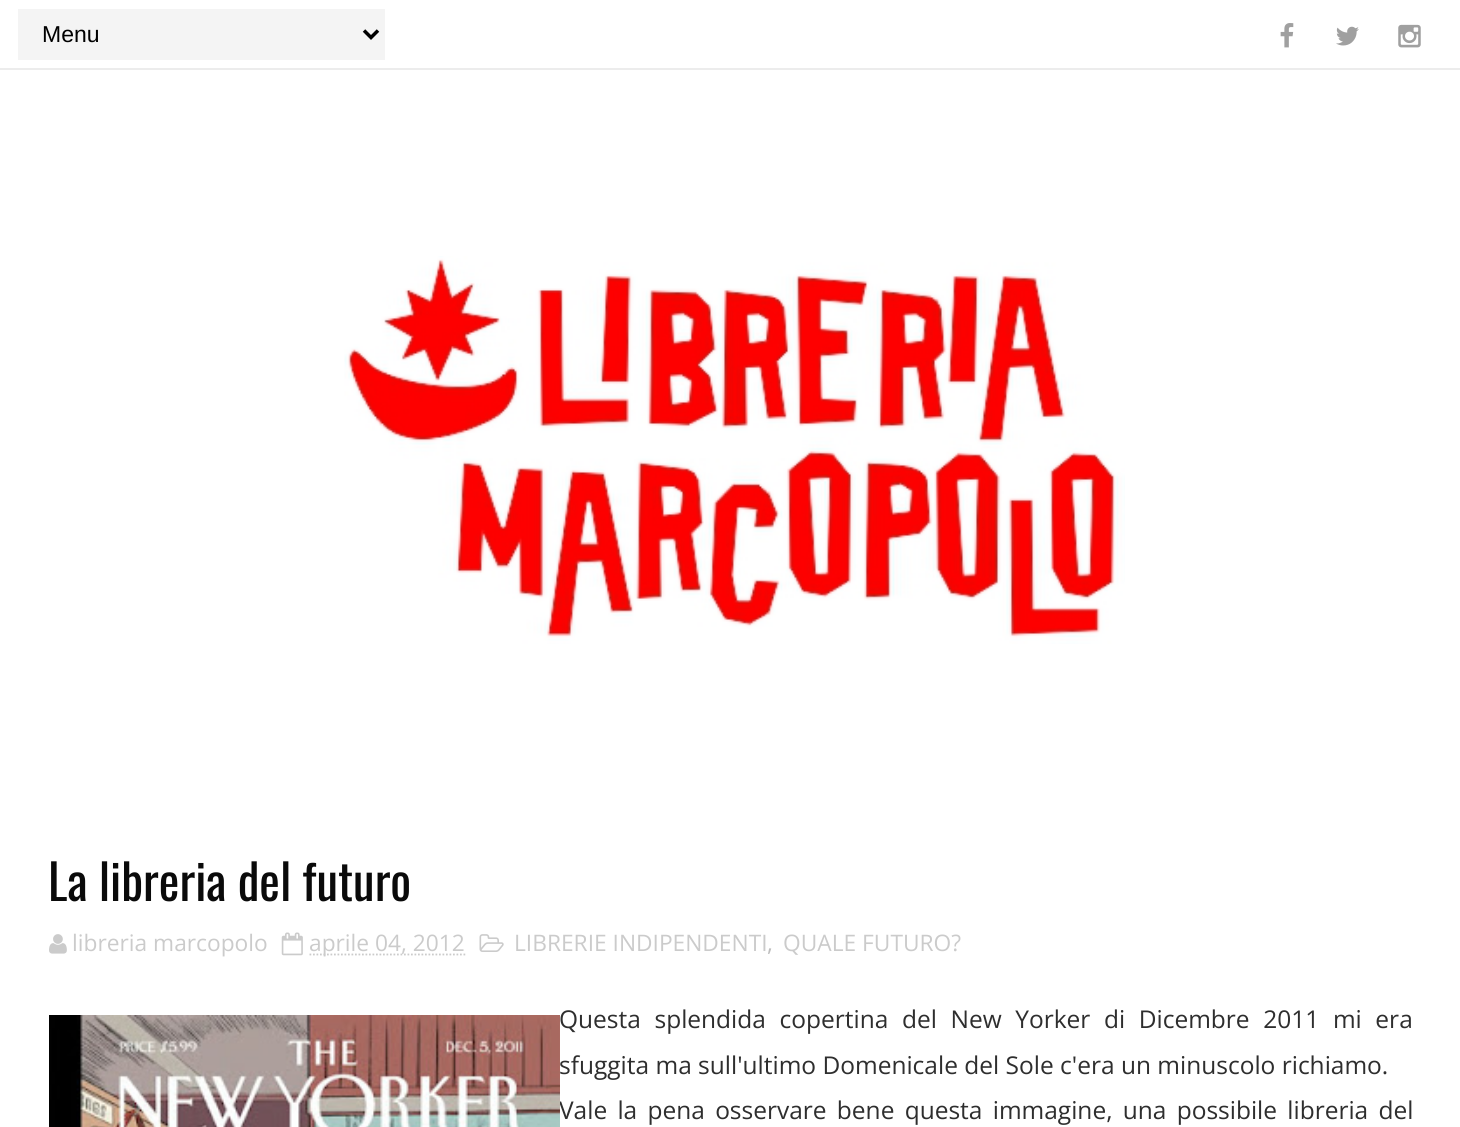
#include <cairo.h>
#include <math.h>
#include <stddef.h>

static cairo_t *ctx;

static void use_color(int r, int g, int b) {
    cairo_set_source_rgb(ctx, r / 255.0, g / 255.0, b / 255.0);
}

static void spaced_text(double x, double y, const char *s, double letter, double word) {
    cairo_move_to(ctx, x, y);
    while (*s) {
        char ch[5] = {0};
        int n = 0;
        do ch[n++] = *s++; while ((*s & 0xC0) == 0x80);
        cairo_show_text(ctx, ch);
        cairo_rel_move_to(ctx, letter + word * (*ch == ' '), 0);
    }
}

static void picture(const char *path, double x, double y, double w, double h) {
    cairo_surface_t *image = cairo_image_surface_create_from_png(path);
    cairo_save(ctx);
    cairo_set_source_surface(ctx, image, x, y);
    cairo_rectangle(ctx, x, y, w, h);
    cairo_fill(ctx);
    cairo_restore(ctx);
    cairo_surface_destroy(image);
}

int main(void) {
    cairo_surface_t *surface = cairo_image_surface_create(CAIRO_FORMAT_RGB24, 1460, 1127);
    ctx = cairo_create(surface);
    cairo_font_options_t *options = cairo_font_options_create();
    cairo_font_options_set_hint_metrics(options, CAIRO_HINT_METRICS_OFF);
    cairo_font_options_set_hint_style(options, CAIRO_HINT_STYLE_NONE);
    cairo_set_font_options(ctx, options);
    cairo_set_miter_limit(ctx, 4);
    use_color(255, 255, 255);
    cairo_paint(ctx);
    use_color(236, 236, 236);
    cairo_rectangle(ctx, 0, 68, 1460, 2);
    cairo_fill(ctx);
    use_color(244, 244, 244);
    cairo_rectangle(ctx, 18, 9, 367, 51);
    cairo_fill(ctx);
    cairo_new_path(ctx);
    cairo_move_to(ctx, 364, 30.5);
    cairo_line_to(ctx, 371, 37.5);
    cairo_line_to(ctx, 378, 30.5);
    use_color(0, 0, 0);
    cairo_set_line_width(ctx, 3.5);
    cairo_stroke(ctx);
    cairo_select_font_face(ctx, "Liberation Sans", CAIRO_FONT_SLANT_NORMAL, CAIRO_FONT_WEIGHT_NORMAL);
    cairo_set_font_size(ctx, 23);
    cairo_move_to(ctx, 42, 42);
    cairo_show_text(ctx, "Menu");
    picture("img1.png", 1280, 23, 14, 25);
    picture("img2.png", 1336, 26, 23, 20);
    picture("img3.png", 1398, 24, 23, 24);
    picture("img4.png", 344, 256, 781, 388);
    cairo_select_font_face(ctx, "Oswald", CAIRO_FONT_SLANT_NORMAL, CAIRO_FONT_WEIGHT_NORMAL);
    cairo_set_font_size(ctx, 49);
    use_color(10, 10, 10);
    cairo_move_to(ctx, 48, 901);
    cairo_show_text(ctx, "La libreria del futuro");
    picture("img5.png", 49, 934, 18, 20);
    cairo_select_font_face(ctx, "Open Sans", CAIRO_FONT_SLANT_NORMAL, CAIRO_FONT_WEIGHT_NORMAL);
    cairo_set_font_size(ctx, 22.75);
    use_color(203, 203, 203);
    cairo_move_to(ctx, 72, 951);
    cairo_show_text(ctx, "libreria marcopolo");
    picture("img6.png", 281, 932, 22, 24);
    cairo_new_path(ctx);
    cairo_move_to(ctx, 309.5, 954.5);
    cairo_line_to(ctx, 465.5, 954.5);
    cairo_set_line_width(ctx, 1.8);
    cairo_set_dash(ctx, (double[]){1.75, 1.75}, 2, 0);
    cairo_stroke(ctx);
    cairo_move_to(ctx, 309, 951);
    cairo_show_text(ctx, "aprile 04, 2012");
    picture("img7.png", 479, 934, 25, 18);
    cairo_move_to(ctx, 514, 951);
    cairo_show_text(ctx, "LIBRERIE INDIPENDENTI");
    use_color(189, 189, 189);
    cairo_move_to(ctx, 767, 951);
    cairo_show_text(ctx, ",");
    use_color(203, 203, 203);
    cairo_move_to(ctx, 783, 951);
    cairo_show_text(ctx, "QUALE FUTURO?");
    cairo_set_font_size(ctx, 24.5);
    use_color(46, 46, 46);
    spaced_text(559, 1119, "Vale la pena osservare bene questa immagine, una possibile libreria del", 0, 3.9);
    picture("img8.png", 49, 1015, 511, 112);
    spaced_text(559, 1028, "Questa splendida copertina del New Yorker di Dicembre 2011 mi era", 0, 7.25);
    cairo_move_to(ctx, 559, 1074);
    cairo_show_text(ctx, "sfuggita ma sull'ultimo Domenicale del Sole c'era un minuscolo richiamo.");
    cairo_surface_write_to_png(surface, "result.png");
    cairo_font_options_destroy(options);
    cairo_destroy(ctx);
    cairo_surface_destroy(surface);
    return 0;
}
